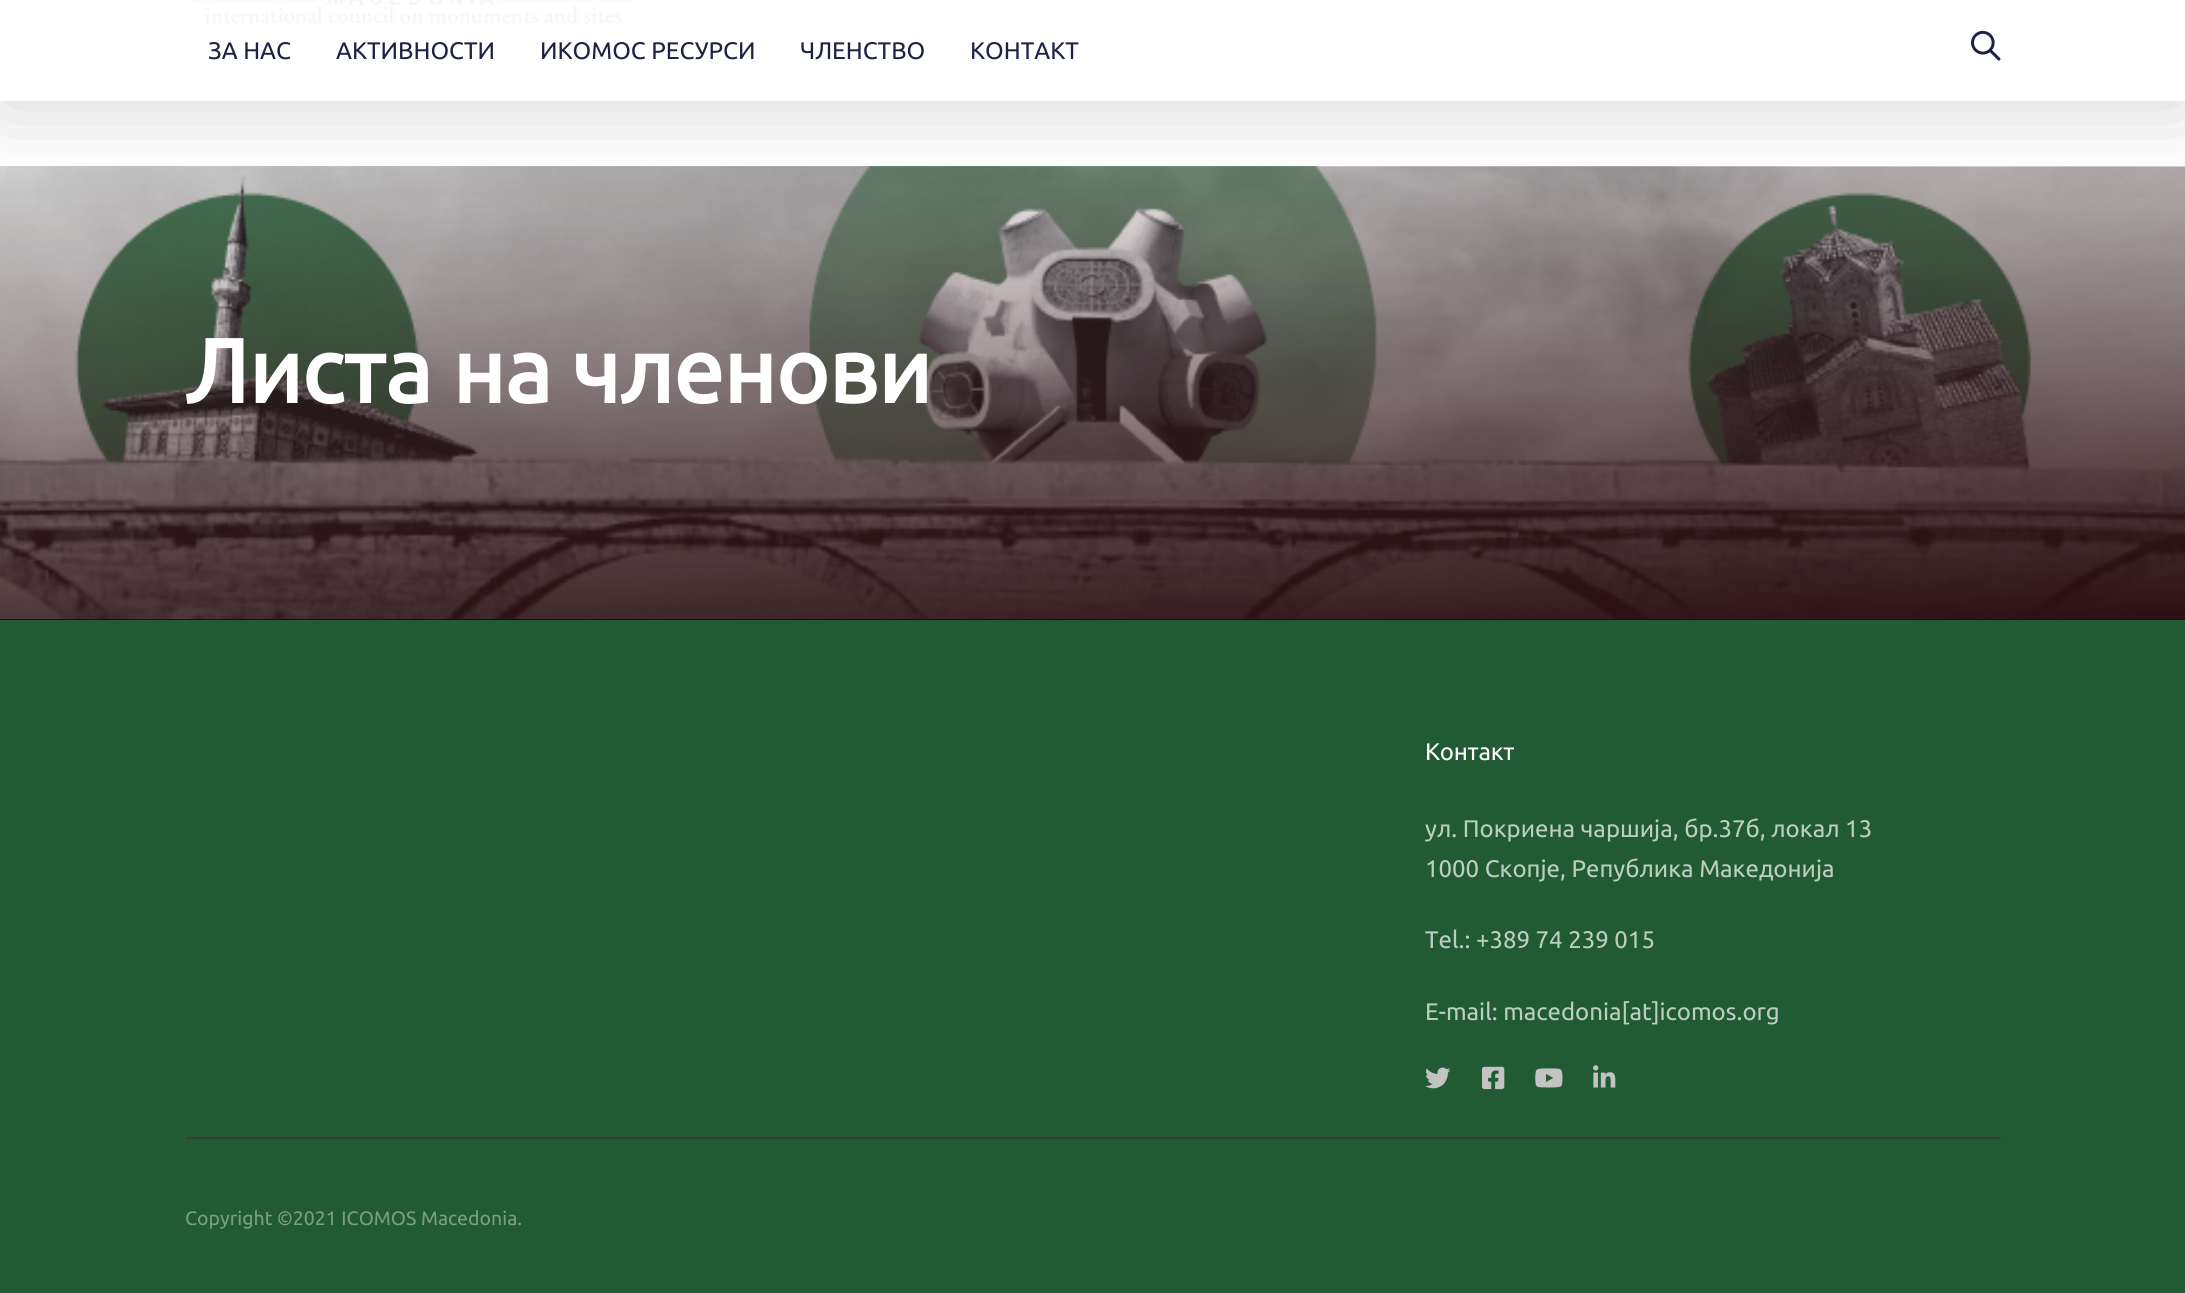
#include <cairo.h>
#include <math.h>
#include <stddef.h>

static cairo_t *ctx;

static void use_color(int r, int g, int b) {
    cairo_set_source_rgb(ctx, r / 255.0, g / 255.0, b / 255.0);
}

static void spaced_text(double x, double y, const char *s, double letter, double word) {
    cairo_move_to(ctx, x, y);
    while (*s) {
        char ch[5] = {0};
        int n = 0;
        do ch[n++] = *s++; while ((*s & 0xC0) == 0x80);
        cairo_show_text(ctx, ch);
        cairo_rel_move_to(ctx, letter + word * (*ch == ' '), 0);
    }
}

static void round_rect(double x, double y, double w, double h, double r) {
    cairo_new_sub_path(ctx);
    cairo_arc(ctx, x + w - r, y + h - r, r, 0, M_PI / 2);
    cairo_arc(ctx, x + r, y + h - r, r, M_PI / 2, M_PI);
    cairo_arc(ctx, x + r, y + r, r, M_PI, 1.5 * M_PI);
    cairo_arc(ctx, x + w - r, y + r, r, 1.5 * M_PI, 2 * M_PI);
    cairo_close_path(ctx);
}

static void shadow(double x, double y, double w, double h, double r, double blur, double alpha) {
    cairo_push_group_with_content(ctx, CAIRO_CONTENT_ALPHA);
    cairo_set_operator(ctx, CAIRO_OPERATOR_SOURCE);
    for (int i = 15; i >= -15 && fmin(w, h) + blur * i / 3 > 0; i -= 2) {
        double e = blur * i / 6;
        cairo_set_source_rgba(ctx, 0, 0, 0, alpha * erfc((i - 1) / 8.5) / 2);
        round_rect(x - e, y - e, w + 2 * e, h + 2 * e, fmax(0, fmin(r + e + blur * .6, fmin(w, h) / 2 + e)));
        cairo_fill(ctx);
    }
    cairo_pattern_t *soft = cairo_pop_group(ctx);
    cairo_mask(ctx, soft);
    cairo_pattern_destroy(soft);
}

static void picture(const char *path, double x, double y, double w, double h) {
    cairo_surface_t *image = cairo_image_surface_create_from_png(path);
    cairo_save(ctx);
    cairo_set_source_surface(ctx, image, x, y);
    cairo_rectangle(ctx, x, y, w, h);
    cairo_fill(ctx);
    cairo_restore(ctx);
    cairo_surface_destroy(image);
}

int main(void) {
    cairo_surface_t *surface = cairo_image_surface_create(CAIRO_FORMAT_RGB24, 2185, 1293);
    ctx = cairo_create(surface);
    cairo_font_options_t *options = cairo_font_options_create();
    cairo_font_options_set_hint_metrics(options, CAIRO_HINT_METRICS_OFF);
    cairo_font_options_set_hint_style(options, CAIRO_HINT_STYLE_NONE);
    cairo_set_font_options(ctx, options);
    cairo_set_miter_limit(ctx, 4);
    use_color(255, 255, 255);
    cairo_paint(ctx);
    picture("img1.png", 186, 0, 449, 24);
    use_color(228, 228, 228);
    cairo_rectangle(ctx, 1556, 0, 2, 2);
    cairo_fill(ctx);
    cairo_rectangle(ctx, 1989, 0, 2, 2);
    cairo_fill(ctx);
    picture("img3.png", 0, 166, 2185, 453);
    cairo_save(ctx);
    cairo_set_fill_rule(ctx, CAIRO_FILL_RULE_EVEN_ODD);
    cairo_new_path(ctx);
    cairo_move_to(ctx, 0, 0);
    cairo_line_to(ctx, 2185, 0);
    cairo_line_to(ctx, 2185, 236);
    cairo_line_to(ctx, 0, 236);
    cairo_close_path(ctx);
    cairo_move_to(ctx, 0, 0);
    cairo_line_to(ctx, 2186, 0);
    cairo_line_to(ctx, 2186, 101);
    cairo_line_to(ctx, 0, 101);
    cairo_close_path(ctx);
    cairo_clip(ctx);
    use_color(0, 0, 0);
    shadow(0, 3, 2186, 101, 0, 43.5, 0.17);
    cairo_restore(ctx);
    cairo_set_source_rgba(ctx, 1, 1, 1, 0.95);
    cairo_rectangle(ctx, 0, 0, 2185, 101);
    cairo_fill(ctx);
    cairo_select_font_face(ctx, "Ubuntu", CAIRO_FONT_SLANT_NORMAL, CAIRO_FONT_WEIGHT_NORMAL);
    cairo_set_font_size(ctx, 24);
    use_color(28, 34, 70);
    cairo_move_to(ctx, 208, 59);
    cairo_show_text(ctx, "ЗА НАС");
    cairo_move_to(ctx, 336, 59);
    cairo_show_text(ctx, "АКТИВНОСТИ");
    cairo_move_to(ctx, 540, 59);
    cairo_show_text(ctx, "ИКОМОС РЕСУРСИ");
    cairo_move_to(ctx, 800, 59);
    cairo_show_text(ctx, "ЧЛЕНСТВО");
    cairo_move_to(ctx, 970, 59);
    cairo_show_text(ctx, "КОНТАКТ");
    picture("img2.png", 1971, 30, 30, 31);
    use_color(16, 19, 29);
    cairo_rectangle(ctx, 0, 619, 2185, 1);
    cairo_fill(ctx);
    cairo_select_font_face(ctx, "Ubuntu", CAIRO_FONT_SLANT_NORMAL, CAIRO_FONT_WEIGHT_BOLD);
    cairo_set_font_size(ctx, 90);
    use_color(255, 255, 255);
    spaced_text(185, 403, "Листа на членови", -0.25, 0);
    use_color(33, 91, 51);
    cairo_rectangle(ctx, 0, 620, 2185, 673);
    cairo_fill(ctx);
    cairo_select_font_face(ctx, "Ubuntu", CAIRO_FONT_SLANT_NORMAL, CAIRO_FONT_WEIGHT_NORMAL);
    cairo_set_font_size(ctx, 24);
    use_color(255, 255, 255);
    spaced_text(1425, 760, "Контакт", -0.25, 0);
    use_color(188, 205, 193);
    cairo_move_to(ctx, 1425, 837);
    cairo_show_text(ctx, "ул. Покриена чаршија, бр.37б, локал 13");
    cairo_move_to(ctx, 1425, 877);
    cairo_show_text(ctx, "1000 Скопје, Република Македонија");
    cairo_move_to(ctx, 1425, 948);
    cairo_show_text(ctx, "Tel.: +389 74 239 015");
    cairo_move_to(ctx, 1425, 1020);
    cairo_show_text(ctx, "E-mail: macedonia[at]icomos.org");
    picture("img4.png", 1425, 1067, 26, 22);
    picture("img5.png", 1482, 1066, 23, 24);
    picture("img6.png", 1535, 1068, 28, 20);
    picture("img7.png", 1593, 1065, 23, 23);
    use_color(54, 60, 70);
    cairo_rectangle(ctx, 186, 1137, 1815, 2);
    cairo_fill(ctx);
    cairo_set_font_size(ctx, 19.5);
    use_color(122, 157, 133);
    cairo_move_to(ctx, 185, 1225);
    cairo_show_text(ctx, "Copyright ©2021 ICOMOS Macedonia.");
    cairo_surface_write_to_png(surface, "result.png");
    cairo_font_options_destroy(options);
    cairo_destroy(ctx);
    cairo_surface_destroy(surface);
    return 0;
}
